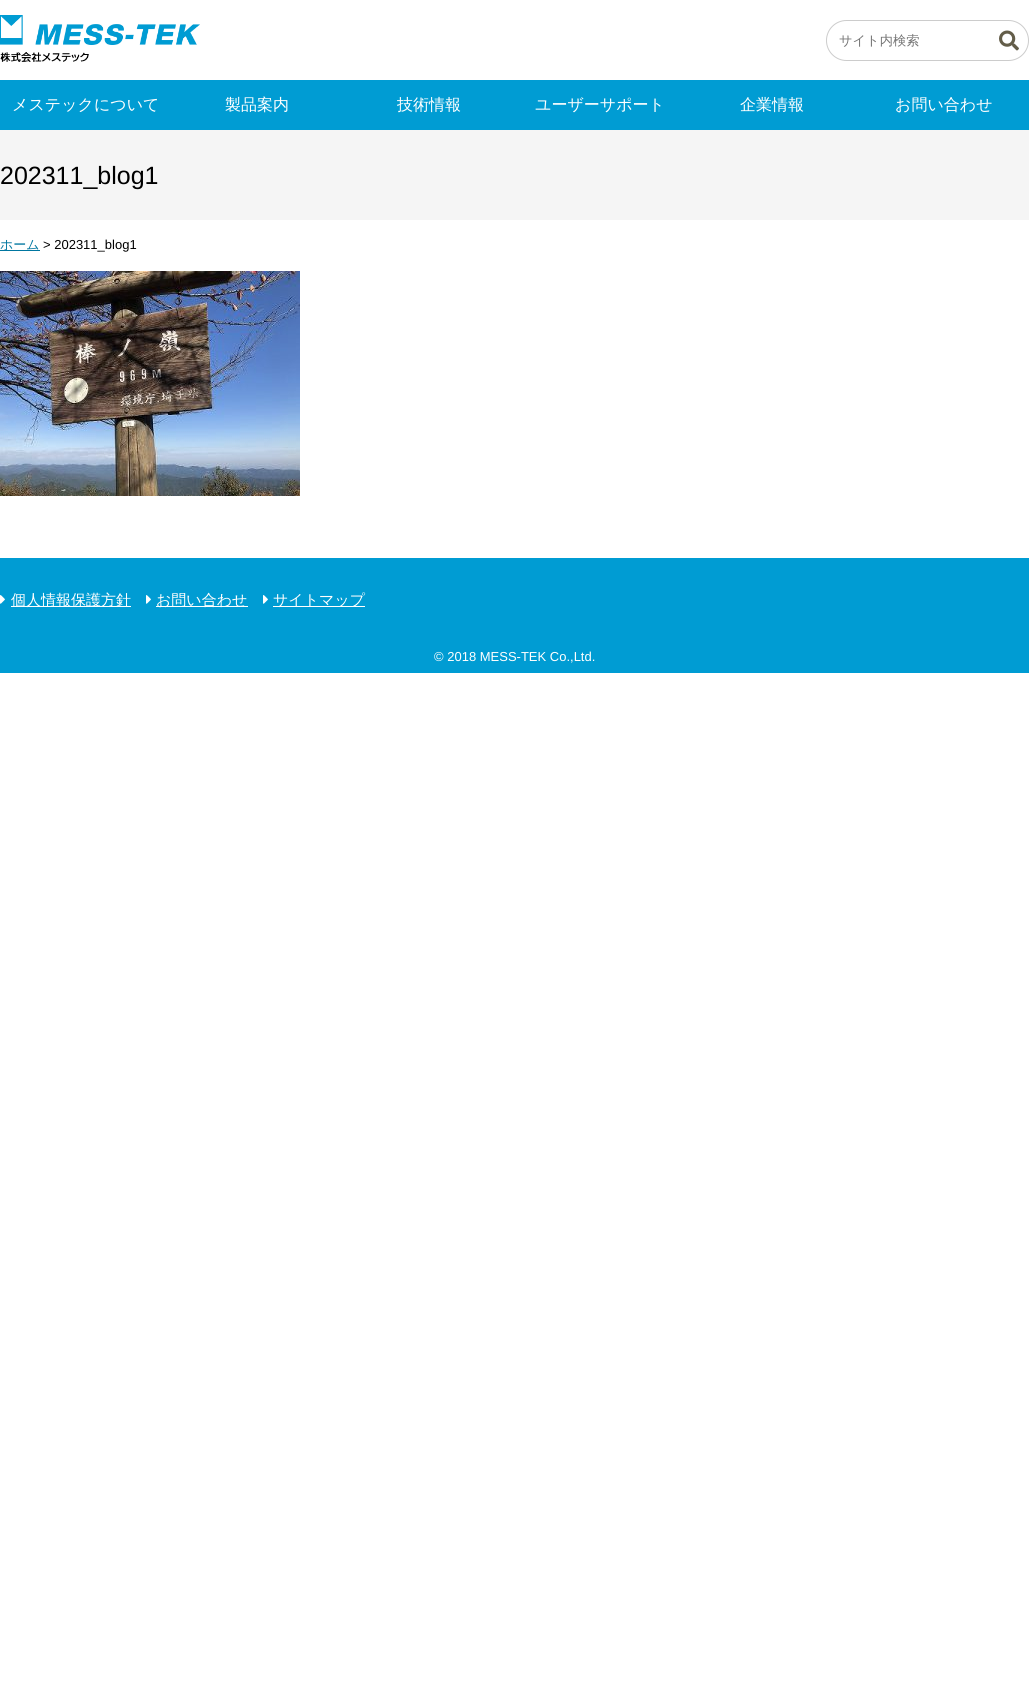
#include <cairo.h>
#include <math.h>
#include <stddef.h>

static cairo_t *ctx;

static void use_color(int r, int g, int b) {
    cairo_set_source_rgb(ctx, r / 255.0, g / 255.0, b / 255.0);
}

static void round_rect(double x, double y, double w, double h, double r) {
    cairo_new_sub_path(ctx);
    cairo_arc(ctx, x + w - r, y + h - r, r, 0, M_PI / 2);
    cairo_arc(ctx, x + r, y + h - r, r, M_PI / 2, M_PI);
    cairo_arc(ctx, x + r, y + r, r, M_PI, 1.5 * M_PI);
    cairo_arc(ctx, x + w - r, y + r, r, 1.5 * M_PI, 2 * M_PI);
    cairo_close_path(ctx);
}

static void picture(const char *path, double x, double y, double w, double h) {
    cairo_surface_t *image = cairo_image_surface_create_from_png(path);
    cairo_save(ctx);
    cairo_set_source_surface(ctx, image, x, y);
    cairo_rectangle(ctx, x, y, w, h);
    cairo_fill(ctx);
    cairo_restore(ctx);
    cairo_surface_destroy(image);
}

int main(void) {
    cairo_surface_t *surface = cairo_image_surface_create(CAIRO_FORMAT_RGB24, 1029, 1690);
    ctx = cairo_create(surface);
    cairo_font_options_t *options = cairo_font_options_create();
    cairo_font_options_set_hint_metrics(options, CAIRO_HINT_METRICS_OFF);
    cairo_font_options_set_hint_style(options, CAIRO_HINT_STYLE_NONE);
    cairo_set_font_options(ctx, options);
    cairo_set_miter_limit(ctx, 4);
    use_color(255, 255, 255);
    cairo_paint(ctx);
    picture("img1.png", 0, 15, 200, 47);
    round_rect(826.5, 20.5, 202, 40, 20);
    use_color(204, 204, 204);
    cairo_set_line_width(ctx, 1);
    cairo_stroke(ctx);
    cairo_select_font_face(ctx, "WenQuanYi Zen Hei Medium", CAIRO_FONT_SLANT_NORMAL, CAIRO_FONT_WEIGHT_NORMAL);
    cairo_set_font_size(ctx, 13.25);
    use_color(117, 117, 117);
    cairo_move_to(ctx, 839, 45);
    cairo_show_text(ctx, "サイト内検索");
    picture("img2.png", 999, 30, 20, 21);
    use_color(0, 156, 211);
    cairo_rectangle(ctx, 0, 80, 1029, 50);
    cairo_fill(ctx);
    cairo_set_font_size(ctx, 16);
    use_color(255, 255, 255);
    cairo_move_to(ctx, 12, 110);
    cairo_show_text(ctx, "メステックについて");
    cairo_move_to(ctx, 225, 110);
    cairo_show_text(ctx, "製品案内");
    cairo_move_to(ctx, 397, 110);
    cairo_show_text(ctx, "技術情報");
    cairo_move_to(ctx, 535, 110);
    cairo_show_text(ctx, "ユーザーサポート");
    cairo_move_to(ctx, 740, 110);
    cairo_show_text(ctx, "企業情報");
    cairo_move_to(ctx, 895, 110);
    cairo_show_text(ctx, "お問い合わせ");
    use_color(245, 245, 245);
    cairo_rectangle(ctx, 0, 130, 1029, 90);
    cairo_fill(ctx);
    cairo_select_font_face(ctx, "Liberation Sans", CAIRO_FONT_SLANT_NORMAL, CAIRO_FONT_WEIGHT_NORMAL);
    cairo_set_font_size(ctx, 25);
    use_color(0, 0, 0);
    cairo_move_to(ctx, 0, 184);
    cairo_show_text(ctx, "202311_blog1");
    use_color(0, 118, 160);
    cairo_rectangle(ctx, 0, 250, 40, 1);
    cairo_fill(ctx);
    cairo_select_font_face(ctx, "WenQuanYi Zen Hei Medium", CAIRO_FONT_SLANT_NORMAL, CAIRO_FONT_WEIGHT_NORMAL);
    cairo_set_font_size(ctx, 13);
    cairo_move_to(ctx, 0, 249);
    cairo_show_text(ctx, "ホーム");
    cairo_select_font_face(ctx, "Liberation Sans", CAIRO_FONT_SLANT_NORMAL, CAIRO_FONT_WEIGHT_NORMAL);
    use_color(0, 0, 0);
    cairo_move_to(ctx, 43, 249);
    cairo_show_text(ctx, "> 202311_blog1");
    picture("img3.png", 0, 271, 300, 225);
    use_color(0, 156, 211);
    cairo_rectangle(ctx, 0, 558, 1029, 115);
    cairo_fill(ctx);
    picture("img4.png", 0, 595, 5, 9);
    use_color(255, 255, 255);
    cairo_rectangle(ctx, 11, 606, 120, 1);
    cairo_fill(ctx);
    cairo_select_font_face(ctx, "WenQuanYi Zen Hei Medium", CAIRO_FONT_SLANT_NORMAL, CAIRO_FONT_WEIGHT_NORMAL);
    cairo_set_font_size(ctx, 15);
    cairo_move_to(ctx, 11, 605);
    cairo_show_text(ctx, "個人情報保護方針");
    picture("img4.png", 146, 595, 5, 9);
    cairo_rectangle(ctx, 156, 606, 92, 1);
    cairo_fill(ctx);
    cairo_move_to(ctx, 156, 605);
    cairo_show_text(ctx, "お問い合わせ");
    picture("img4.png", 263, 595, 5, 9);
    cairo_rectangle(ctx, 273, 606, 92, 1);
    cairo_fill(ctx);
    cairo_move_to(ctx, 273, 605);
    cairo_show_text(ctx, "サイトマップ");
    cairo_select_font_face(ctx, "Liberation Sans", CAIRO_FONT_SLANT_NORMAL, CAIRO_FONT_WEIGHT_NORMAL);
    cairo_set_font_size(ctx, 13);
    cairo_move_to(ctx, 434, 661);
    cairo_show_text(ctx, "© 2018 MESS-TEK Co.,Ltd.");
    cairo_surface_write_to_png(surface, "result.png");
    cairo_font_options_destroy(options);
    cairo_destroy(ctx);
    cairo_surface_destroy(surface);
    return 0;
}
